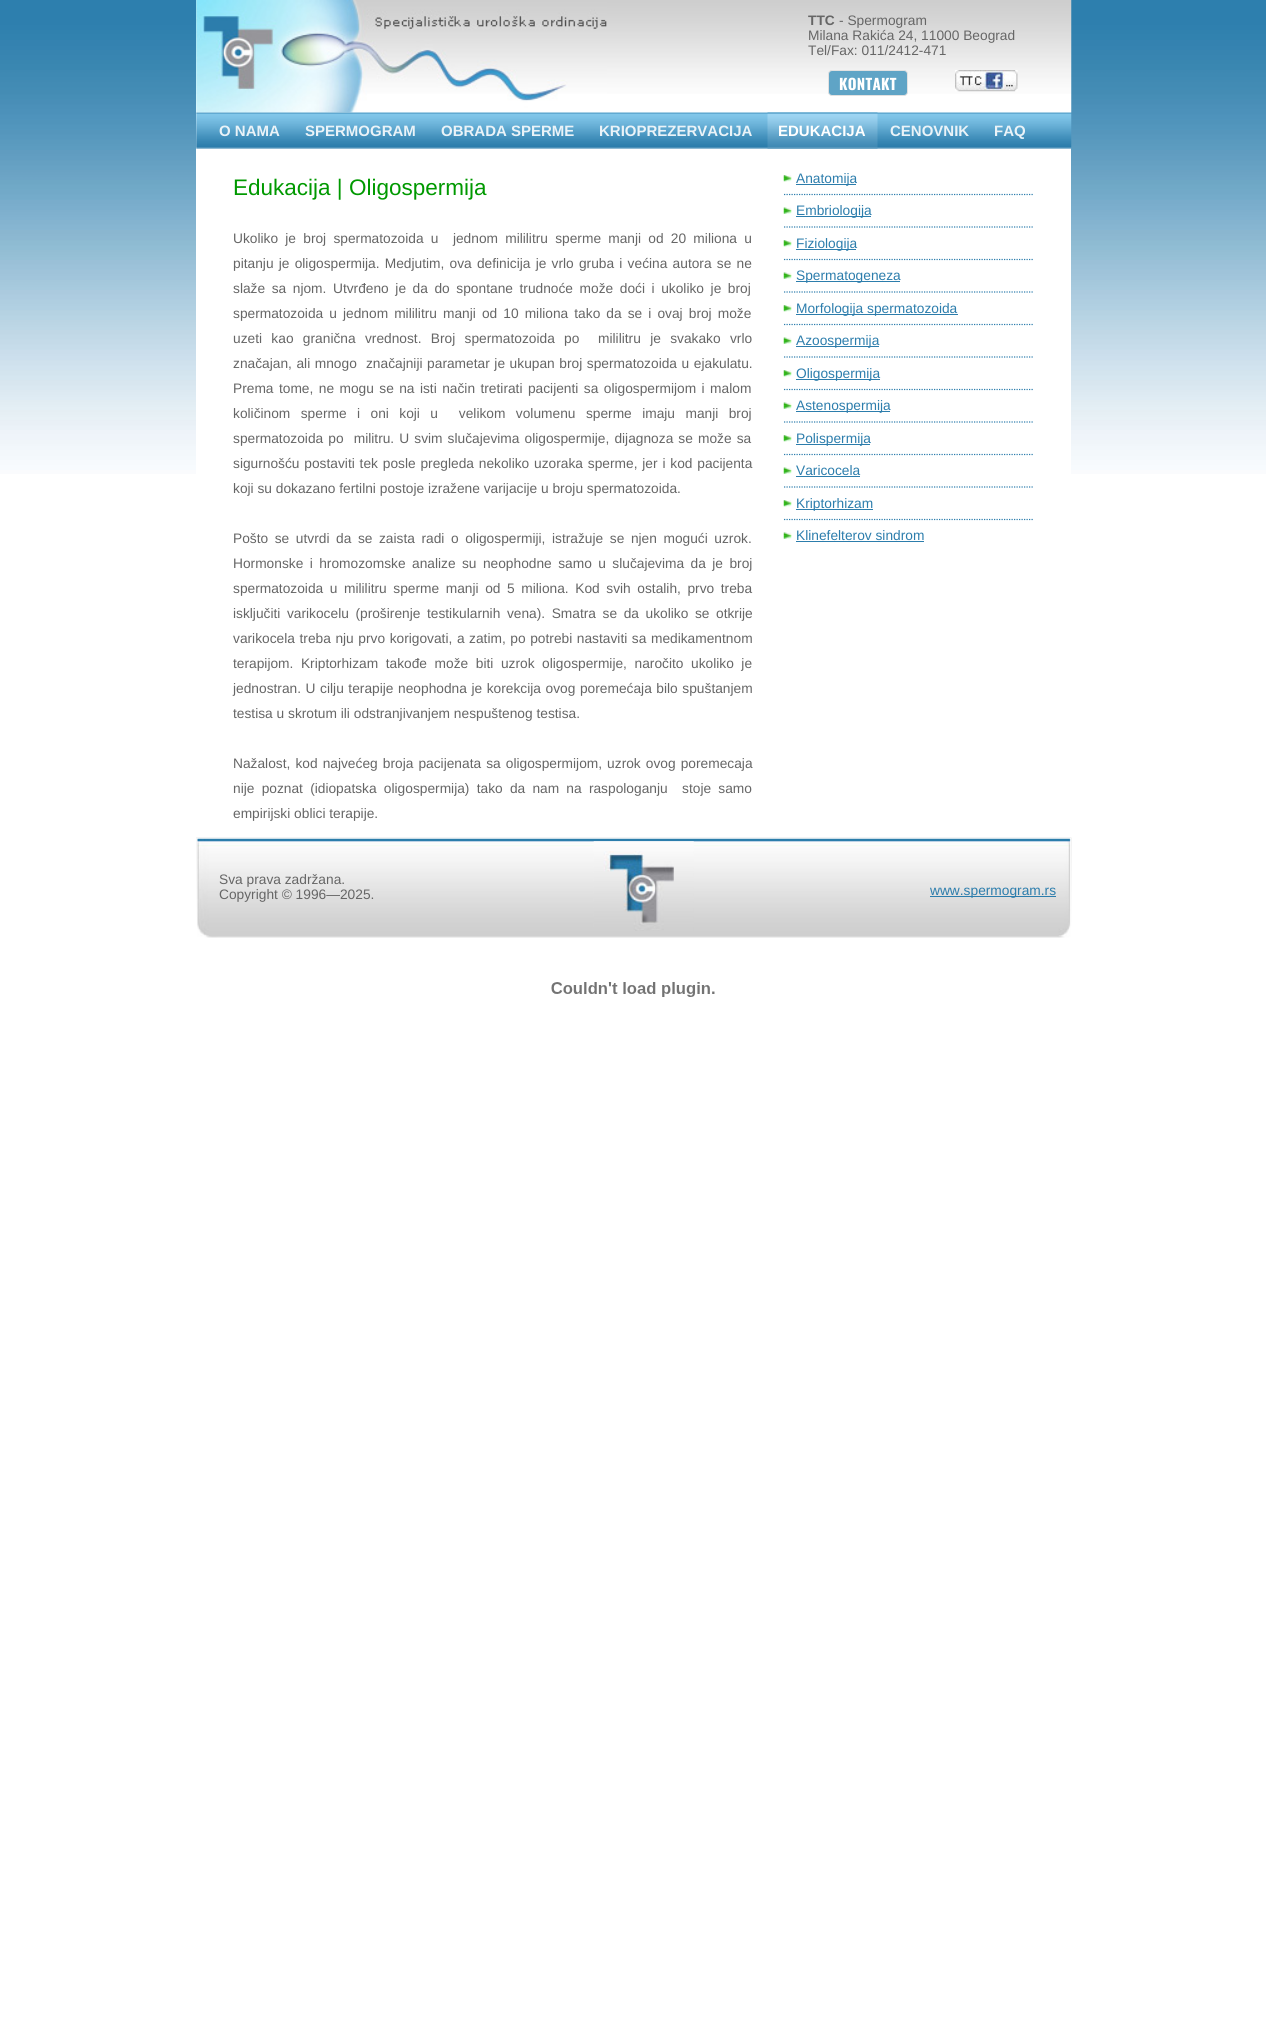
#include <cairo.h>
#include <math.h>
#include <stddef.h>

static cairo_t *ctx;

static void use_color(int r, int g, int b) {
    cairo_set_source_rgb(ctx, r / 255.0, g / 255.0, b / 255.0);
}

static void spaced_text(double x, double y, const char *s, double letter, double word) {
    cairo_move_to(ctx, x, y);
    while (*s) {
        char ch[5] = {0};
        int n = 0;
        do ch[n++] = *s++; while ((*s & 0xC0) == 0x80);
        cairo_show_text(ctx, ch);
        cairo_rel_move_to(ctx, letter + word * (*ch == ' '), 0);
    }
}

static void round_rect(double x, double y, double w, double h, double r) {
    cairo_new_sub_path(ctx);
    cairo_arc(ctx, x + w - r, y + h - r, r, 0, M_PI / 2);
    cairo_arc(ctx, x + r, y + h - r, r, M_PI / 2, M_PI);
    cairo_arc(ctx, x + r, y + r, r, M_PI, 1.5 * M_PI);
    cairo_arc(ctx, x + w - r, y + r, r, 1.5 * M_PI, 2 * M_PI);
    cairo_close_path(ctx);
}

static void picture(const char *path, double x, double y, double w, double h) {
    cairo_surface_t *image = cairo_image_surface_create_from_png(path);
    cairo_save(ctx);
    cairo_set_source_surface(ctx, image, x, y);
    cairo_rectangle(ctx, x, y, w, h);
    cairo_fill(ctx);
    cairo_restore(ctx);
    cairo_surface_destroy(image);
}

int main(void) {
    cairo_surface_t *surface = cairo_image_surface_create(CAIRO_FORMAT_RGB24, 1266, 2029);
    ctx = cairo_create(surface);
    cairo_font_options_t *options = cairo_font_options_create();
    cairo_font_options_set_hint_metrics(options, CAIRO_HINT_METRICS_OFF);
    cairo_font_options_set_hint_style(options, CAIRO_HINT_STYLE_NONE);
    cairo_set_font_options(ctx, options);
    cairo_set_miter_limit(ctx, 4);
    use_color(255, 255, 255);
    cairo_paint(ctx);
    picture("img1.png", 0, 0, 1266, 474);
    use_color(255, 255, 255);
    cairo_rectangle(ctx, 196, 0, 875, 474);
    cairo_fill(ctx);
    picture("img2.png", 196, 0, 876, 113);
    picture("img3.png", 196, 0, 411, 113);
    cairo_select_font_face(ctx, "Liberation Sans", CAIRO_FONT_SLANT_NORMAL, CAIRO_FONT_WEIGHT_BOLD);
    cairo_set_font_size(ctx, 13.75);
    use_color(102, 102, 102);
    cairo_move_to(ctx, 808, 25);
    cairo_show_text(ctx, "TTC");
    cairo_select_font_face(ctx, "Liberation Sans", CAIRO_FONT_SLANT_NORMAL, CAIRO_FONT_WEIGHT_NORMAL);
    cairo_move_to(ctx, 839, 25);
    cairo_show_text(ctx, "- Spermogram");
    cairo_move_to(ctx, 808, 40);
    cairo_show_text(ctx, "Milana Rakića 24, 11000 Beograd");
    cairo_move_to(ctx, 808, 55);
    cairo_show_text(ctx, "Tel/Fax: 011/2412-471");
    use_color(95, 164, 198);
    round_rect(828.5, 70.5, 79, 25, 3.5);
    cairo_fill_preserve(ctx);
    use_color(225, 225, 225);
    cairo_set_line_width(ctx, 1);
    cairo_stroke(ctx);
    cairo_select_font_face(ctx, "Oswald", CAIRO_FONT_SLANT_NORMAL, CAIRO_FONT_WEIGHT_BOLD);
    cairo_set_font_size(ctx, 15);
    use_color(255, 255, 255);
    spaced_text(839, 90, "KONTAKT", 0.25, 0);
    picture("img4.png", 955, 70, 63, 22);
    picture("img5.png", 196, 112, 876, 37);
    cairo_select_font_face(ctx, "Liberation Sans", CAIRO_FONT_SLANT_NORMAL, CAIRO_FONT_WEIGHT_BOLD);
    use_color(234, 243, 248);
    cairo_move_to(ctx, 219, 136);
    cairo_show_text(ctx, "O NAMA");
    cairo_move_to(ctx, 305, 136);
    cairo_show_text(ctx, "SPERMOGRAM");
    cairo_move_to(ctx, 441, 136);
    cairo_show_text(ctx, "OBRADA SPERME");
    cairo_move_to(ctx, 599, 136);
    cairo_show_text(ctx, "KRIOPREZERVACIJA");
    picture("img6.png", 767, 112, 111, 37);
    use_color(255, 255, 255);
    cairo_move_to(ctx, 778, 136);
    cairo_show_text(ctx, "EDUKACIJA");
    use_color(234, 243, 248);
    cairo_move_to(ctx, 890, 136);
    cairo_show_text(ctx, "CENOVNIK");
    cairo_move_to(ctx, 994, 136);
    cairo_show_text(ctx, "FAQ");
    cairo_select_font_face(ctx, "Liberation Sans", CAIRO_FONT_SLANT_NORMAL, CAIRO_FONT_WEIGHT_NORMAL);
    cairo_set_font_size(ctx, 22.5);
    use_color(0, 153, 0);
    cairo_move_to(ctx, 233, 195);
    cairo_show_text(ctx, "Edukacija | Oligospermija");
    cairo_set_font_size(ctx, 13.75);
    use_color(102, 102, 102);
    spaced_text(233, 243, "Ukoliko je broj spermatozoida u  jednom mililitru sperme manji od 20 miliona u", 0, 3.4);
    spaced_text(233, 268, "pitanju je oligospermija. Medjutim, ova definicija je vrlo gruba i većina autora se ne", 0, 1.4);
    spaced_text(233, 293, "slaže sa njom. Utvrđeno je da do spontane trudnoće može doći i ukoliko je broj", 0, 2.75);
    spaced_text(233, 318, "spermatozoida u jednom mililitru manji od 10 miliona tako da se i ovaj broj može", 0, 2.25);
    spaced_text(233, 343, "uzeti kao granična vrednost. Broj spermatozoida po  mililitru je svakako vrlo", 0, 5.5);
    spaced_text(233, 368, "značajan, ali mnogo  značajniji parametar je ukupan broj spermatozoida u ejakulatu.", 0, 0.75);
    spaced_text(233, 393, "Prema tome, ne mogu se na isti način tretirati pacijenti sa oligospermijom i malom", 0, 1.6);
    spaced_text(233, 418, "količinom sperme i oni koji u  velikom volumenu sperme imaju manji broj", 0, 6.6);
    spaced_text(233, 443, "spermatozoida po  militru. U svim slučajevima oligospermije, dijagnoza se može sa", 0, 1.25);
    spaced_text(233, 468, "sigurnošću postaviti tek posle pregleda nekoliko uzoraka sperme, jer i kod pacijenta", 0, 1);
    cairo_move_to(ctx, 233, 493);
    cairo_show_text(ctx, "koji su dokazano fertilni postoje izražene varijacije u broju spermatozoida.");
    spaced_text(233, 543, "Pošto se utvrdi da se zaista radi o oligospermiji, istražuje se njen mogući uzrok.", 0, 2.75);
    spaced_text(233, 568, "Hormonske i hromozomske analize su neophodne samo u slučajevima da je broj", 0, 2.6);
    spaced_text(233, 593, "spermatozoida u mililitru sperme manji od 5 miliona. Kod svih ostalih, prvo treba", 0, 2.75);
    spaced_text(233, 618, "isključiti varikocelu (proširenje testikularnih vena). Smatra se da ukoliko se otkrije", 0, 2.75);
    spaced_text(233, 643, "varikocela treba nju prvo korigovati, a zatim, po potrebi nastaviti sa medikamentnom", 0, 0.75);
    spaced_text(233, 668, "terapijom. Kriptorhizam takođe može biti uzrok oligospermije, naročito ukoliko je", 0, 3.75);
    spaced_text(233, 693, "jednostran. U cilju terapije neophodna je korekcija ovog poremećaja bilo spuštanjem", 0, 0.75);
    cairo_move_to(ctx, 233, 718);
    cairo_show_text(ctx, "testisa u skrotum ili odstranjivanjem nespuštenog testisa.");
    spaced_text(233, 768, "Nažalost, kod najvećeg broja pacijenata sa oligospermijom, uzrok ovog poremecaja", 0, 1.25);
    spaced_text(233, 793, "nije poznat (idiopatska oligospermija) tako da nam na raspologanju  stoje samo", 0, 3.4);
    cairo_move_to(ctx, 233, 818);
    cairo_show_text(ctx, "empirijski oblici terapije.");
    picture("img7.png", 783, 175, 9, 7);
    cairo_new_path(ctx);
    cairo_move_to(ctx, 784, 194.5);
    cairo_line_to(ctx, 1034, 194.5);
    use_color(44, 125, 172);
    cairo_set_line_width(ctx, 1.2);
    cairo_set_dash(ctx, (double[]){1.25, 1.25}, 2, 0);
    cairo_stroke(ctx);
    cairo_rectangle(ctx, 796, 184, 60, 1);
    cairo_fill(ctx);
    cairo_move_to(ctx, 796, 183);
    cairo_show_text(ctx, "Anatomija");
    picture("img8.png", 783, 207, 9, 7);
    cairo_new_path(ctx);
    cairo_move_to(ctx, 784, 227);
    cairo_line_to(ctx, 1034, 227);
    cairo_stroke(ctx);
    cairo_rectangle(ctx, 796, 216, 75, 1);
    cairo_fill(ctx);
    cairo_move_to(ctx, 796, 215);
    cairo_show_text(ctx, "Embriologija");
    picture("img7.png", 783, 240, 9, 7);
    cairo_new_path(ctx);
    cairo_move_to(ctx, 784, 259.5);
    cairo_line_to(ctx, 1034, 259.5);
    cairo_stroke(ctx);
    cairo_rectangle(ctx, 796, 249, 60, 1);
    cairo_fill(ctx);
    cairo_move_to(ctx, 796, 248);
    cairo_show_text(ctx, "Fiziologija");
    picture("img8.png", 783, 272, 9, 7);
    cairo_new_path(ctx);
    cairo_move_to(ctx, 784, 292);
    cairo_line_to(ctx, 1034, 292);
    cairo_stroke(ctx);
    cairo_rectangle(ctx, 796, 281, 104, 1);
    cairo_fill(ctx);
    cairo_move_to(ctx, 796, 280);
    cairo_show_text(ctx, "Spermatogeneza");
    picture("img7.png", 783, 305, 9, 7);
    cairo_new_path(ctx);
    cairo_move_to(ctx, 784, 324.5);
    cairo_line_to(ctx, 1034, 324.5);
    cairo_stroke(ctx);
    cairo_rectangle(ctx, 796, 314, 162, 1);
    cairo_fill(ctx);
    cairo_move_to(ctx, 796, 313);
    cairo_show_text(ctx, "Morfologija spermatozoida");
    picture("img8.png", 783, 337, 9, 7);
    cairo_new_path(ctx);
    cairo_move_to(ctx, 784, 357);
    cairo_line_to(ctx, 1034, 357);
    cairo_stroke(ctx);
    cairo_rectangle(ctx, 796, 346, 83, 1);
    cairo_fill(ctx);
    cairo_move_to(ctx, 796, 345);
    cairo_show_text(ctx, "Azoospermija");
    picture("img7.png", 783, 370, 9, 7);
    cairo_new_path(ctx);
    cairo_move_to(ctx, 784, 389.5);
    cairo_line_to(ctx, 1034, 389.5);
    cairo_stroke(ctx);
    cairo_rectangle(ctx, 796, 379, 84, 1);
    cairo_fill(ctx);
    cairo_move_to(ctx, 796, 378);
    cairo_show_text(ctx, "Oligospermija");
    picture("img8.png", 783, 402, 9, 7);
    cairo_new_path(ctx);
    cairo_move_to(ctx, 784, 422);
    cairo_line_to(ctx, 1034, 422);
    cairo_stroke(ctx);
    cairo_rectangle(ctx, 796, 411, 94, 1);
    cairo_fill(ctx);
    cairo_move_to(ctx, 796, 410);
    cairo_show_text(ctx, "Astenospermija");
    picture("img7.png", 783, 435, 9, 7);
    cairo_new_path(ctx);
    cairo_move_to(ctx, 784, 454.5);
    cairo_line_to(ctx, 1034, 454.5);
    cairo_stroke(ctx);
    cairo_rectangle(ctx, 796, 444, 74, 1);
    cairo_fill(ctx);
    cairo_move_to(ctx, 796, 443);
    cairo_show_text(ctx, "Polispermija");
    picture("img8.png", 783, 467, 9, 7);
    cairo_new_path(ctx);
    cairo_move_to(ctx, 784, 487);
    cairo_line_to(ctx, 1034, 487);
    cairo_stroke(ctx);
    cairo_move_to(ctx, 796, 475);
    cairo_show_text(ctx, "Varicocela");
    cairo_rectangle(ctx, 796, 476, 64, 1);
    cairo_fill(ctx);
    picture("img7.png", 783, 500, 9, 7);
    cairo_new_path(ctx);
    cairo_move_to(ctx, 784, 519.5);
    cairo_line_to(ctx, 1034, 519.5);
    cairo_stroke(ctx);
    cairo_rectangle(ctx, 796, 509, 77, 1);
    cairo_fill(ctx);
    cairo_move_to(ctx, 796, 508);
    cairo_show_text(ctx, "Kriptorhizam");
    picture("img8.png", 783, 532, 9, 7);
    cairo_move_to(ctx, 796, 540);
    cairo_show_text(ctx, "Klinefelterov sindrom");
    cairo_rectangle(ctx, 796, 541, 128, 1);
    cairo_fill(ctx);
    picture("img9.png", 196, 837, 876, 89);
    picture("img10.png", 196, 837, 875, 101);
    use_color(102, 102, 102);
    cairo_move_to(ctx, 219, 884);
    cairo_show_text(ctx, "Sva prava zadržana.");
    cairo_move_to(ctx, 219, 899);
    cairo_show_text(ctx, "Copyright © 1996—2025.");
    picture("img11.png", 593, 841, 101, 90);
    use_color(44, 125, 172);
    cairo_rectangle(ctx, 930, 896, 126, 1);
    cairo_fill(ctx);
    cairo_move_to(ctx, 930, 895);
    cairo_show_text(ctx, "www.spermogram.rs");
    picture("img12.png", 551, 982, 164, 15);
    cairo_surface_write_to_png(surface, "result.png");
    cairo_font_options_destroy(options);
    cairo_destroy(ctx);
    cairo_surface_destroy(surface);
    return 0;
}
